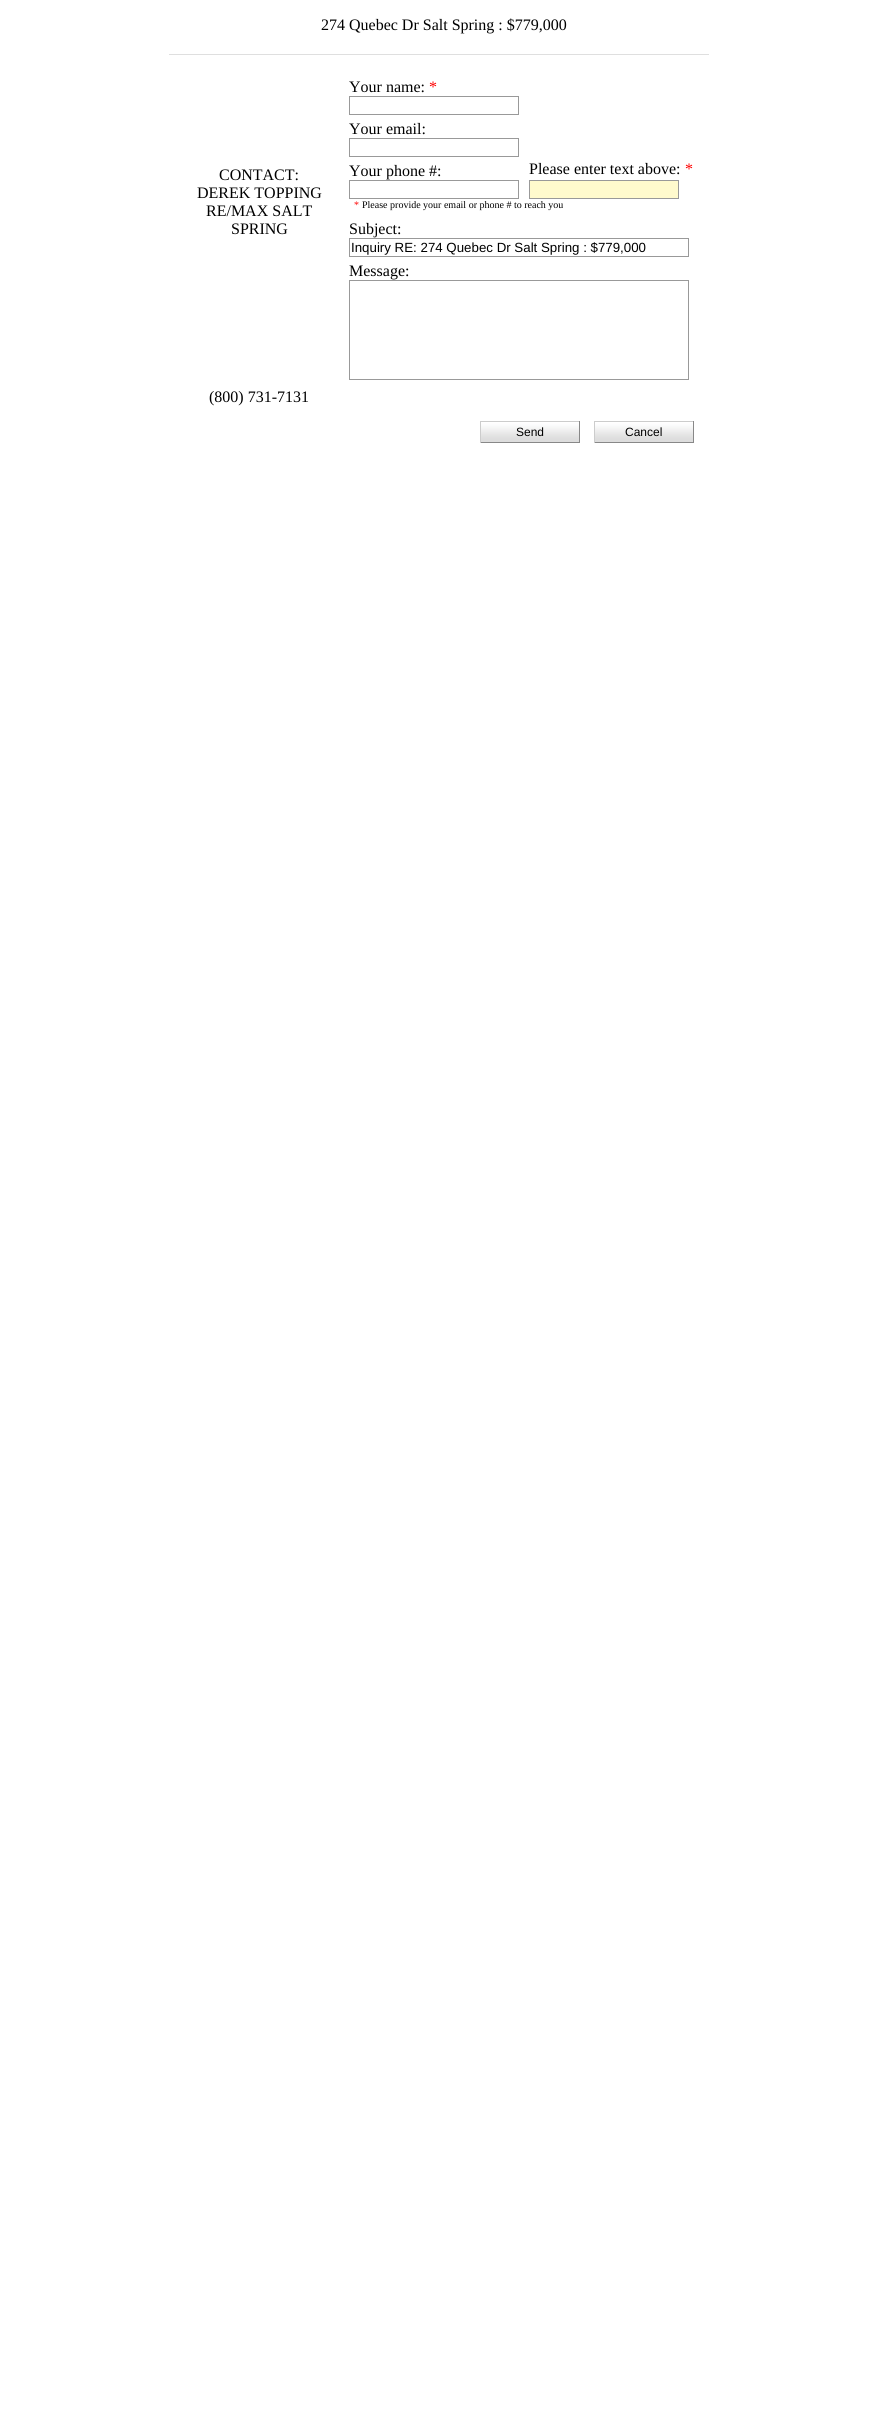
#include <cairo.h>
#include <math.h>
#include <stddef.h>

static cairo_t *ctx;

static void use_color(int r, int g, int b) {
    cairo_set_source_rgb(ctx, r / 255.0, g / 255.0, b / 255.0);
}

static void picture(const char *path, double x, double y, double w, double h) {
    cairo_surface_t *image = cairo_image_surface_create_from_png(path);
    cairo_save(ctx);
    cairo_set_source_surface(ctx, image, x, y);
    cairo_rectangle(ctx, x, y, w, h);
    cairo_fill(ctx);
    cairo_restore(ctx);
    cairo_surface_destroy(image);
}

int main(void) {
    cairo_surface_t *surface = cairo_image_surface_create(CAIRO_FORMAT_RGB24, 878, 2427);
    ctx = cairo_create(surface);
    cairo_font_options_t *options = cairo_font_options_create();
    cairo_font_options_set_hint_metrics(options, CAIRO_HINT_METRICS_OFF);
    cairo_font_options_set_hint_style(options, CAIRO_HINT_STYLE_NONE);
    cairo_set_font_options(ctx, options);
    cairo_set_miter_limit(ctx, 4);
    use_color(255, 255, 255);
    cairo_paint(ctx);
    use_color(223, 223, 223);
    cairo_rectangle(ctx, 169, 54, 540, 1);
    cairo_fill(ctx);
    cairo_select_font_face(ctx, "Liberation Serif", CAIRO_FONT_SLANT_NORMAL, CAIRO_FONT_WEIGHT_NORMAL);
    cairo_set_font_size(ctx, 16);
    use_color(0, 0, 0);
    cairo_move_to(ctx, 321, 30);
    cairo_show_text(ctx, "274 Quebec Dr Salt Spring : $779,000");
    cairo_move_to(ctx, 219, 180);
    cairo_show_text(ctx, "CONTACT:");
    cairo_move_to(ctx, 197, 198);
    cairo_show_text(ctx, "DEREK TOPPING");
    cairo_move_to(ctx, 206, 216);
    cairo_show_text(ctx, "RE/MAX SALT");
    cairo_move_to(ctx, 231, 234);
    cairo_show_text(ctx, "SPRING");
    cairo_move_to(ctx, 209, 402);
    cairo_show_text(ctx, "(800) 731-7131");
    cairo_move_to(ctx, 349, 92);
    cairo_show_text(ctx, "Your name:");
    use_color(255, 0, 0);
    cairo_move_to(ctx, 429, 92);
    cairo_show_text(ctx, "*");
    cairo_rectangle(ctx, 349.5, 96.5, 169, 18);
    use_color(153, 153, 153);
    cairo_set_line_width(ctx, 1);
    cairo_stroke(ctx);
    use_color(0, 0, 0);
    cairo_move_to(ctx, 349, 134);
    cairo_show_text(ctx, "Your email:");
    cairo_rectangle(ctx, 349.5, 138.5, 169, 18);
    use_color(153, 153, 153);
    cairo_stroke(ctx);
    use_color(0, 0, 0);
    cairo_move_to(ctx, 349, 176);
    cairo_show_text(ctx, "Your phone #:");
    cairo_rectangle(ctx, 349.5, 180.5, 169, 18);
    use_color(153, 153, 153);
    cairo_stroke(ctx);
    use_color(0, 0, 0);
    cairo_move_to(ctx, 529, 174);
    cairo_show_text(ctx, "Please enter text above:");
    use_color(255, 0, 0);
    cairo_move_to(ctx, 685, 174);
    cairo_show_text(ctx, "*");
    use_color(255, 250, 205);
    cairo_rectangle(ctx, 529.5, 180.5, 149, 18);
    cairo_fill_preserve(ctx);
    use_color(153, 153, 153);
    cairo_stroke(ctx);
    cairo_set_font_size(ctx, 10);
    use_color(255, 0, 0);
    cairo_move_to(ctx, 354, 208);
    cairo_show_text(ctx, "*");
    use_color(0, 0, 0);
    cairo_move_to(ctx, 362, 208);
    cairo_show_text(ctx, "Please provide your email or phone # to reach you");
    cairo_set_font_size(ctx, 16);
    cairo_move_to(ctx, 349, 234);
    cairo_show_text(ctx, "Subject:");
    cairo_rectangle(ctx, 349.5, 238.5, 339, 18);
    use_color(153, 153, 153);
    cairo_stroke(ctx);
    cairo_select_font_face(ctx, "Liberation Sans", CAIRO_FONT_SLANT_NORMAL, CAIRO_FONT_WEIGHT_NORMAL);
    cairo_set_font_size(ctx, 13.3);
    use_color(0, 0, 0);
    cairo_move_to(ctx, 351, 252);
    cairo_show_text(ctx, "Inquiry RE: 274 Quebec Dr Salt Spring : $779,000");
    cairo_select_font_face(ctx, "Liberation Serif", CAIRO_FONT_SLANT_NORMAL, CAIRO_FONT_WEIGHT_NORMAL);
    cairo_set_font_size(ctx, 16);
    cairo_move_to(ctx, 349, 276);
    cairo_show_text(ctx, "Message:");
    cairo_rectangle(ctx, 349.5, 280.5, 339, 99);
    use_color(153, 153, 153);
    cairo_stroke(ctx);
    picture("img1.png", 481, 422, 98, 20);
    use_color(204, 204, 204);
    cairo_rectangle(ctx, 480, 421, 100, 1);
    cairo_fill(ctx);
    use_color(136, 136, 136);
    cairo_rectangle(ctx, 579, 421, 1, 22);
    cairo_fill(ctx);
    cairo_rectangle(ctx, 480, 442, 100, 1);
    cairo_fill(ctx);
    use_color(204, 204, 204);
    cairo_rectangle(ctx, 480, 421, 1, 22);
    cairo_fill(ctx);
    cairo_select_font_face(ctx, "Liberation Sans", CAIRO_FONT_SLANT_NORMAL, CAIRO_FONT_WEIGHT_NORMAL);
    cairo_set_font_size(ctx, 12);
    use_color(0, 0, 0);
    cairo_move_to(ctx, 516, 436);
    cairo_show_text(ctx, "Send");
    picture("img1.png", 595, 422, 98, 20);
    use_color(204, 204, 204);
    cairo_rectangle(ctx, 594, 421, 100, 1);
    cairo_fill(ctx);
    use_color(136, 136, 136);
    cairo_rectangle(ctx, 693, 421, 1, 22);
    cairo_fill(ctx);
    cairo_rectangle(ctx, 594, 442, 100, 1);
    cairo_fill(ctx);
    use_color(204, 204, 204);
    cairo_rectangle(ctx, 594, 421, 1, 22);
    cairo_fill(ctx);
    use_color(0, 0, 0);
    cairo_move_to(ctx, 625, 436);
    cairo_show_text(ctx, "Cancel");
    cairo_surface_write_to_png(surface, "result.png");
    cairo_font_options_destroy(options);
    cairo_destroy(ctx);
    cairo_surface_destroy(surface);
    return 0;
}
